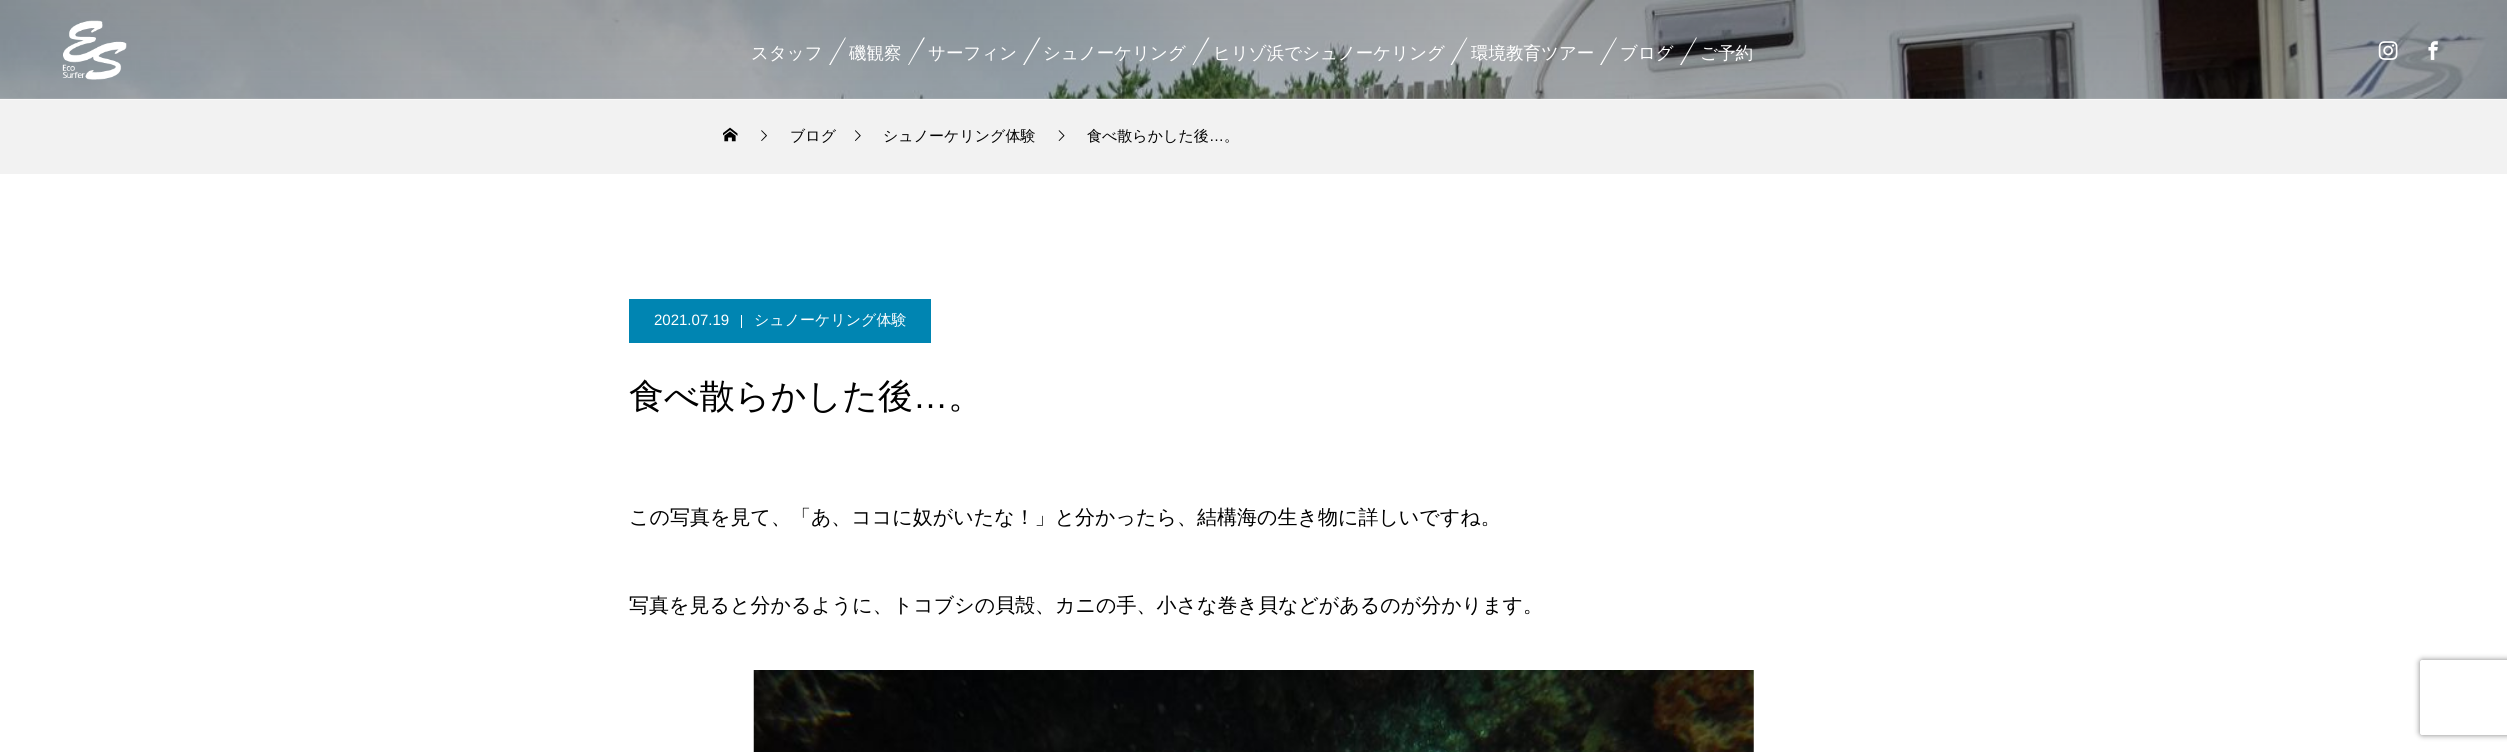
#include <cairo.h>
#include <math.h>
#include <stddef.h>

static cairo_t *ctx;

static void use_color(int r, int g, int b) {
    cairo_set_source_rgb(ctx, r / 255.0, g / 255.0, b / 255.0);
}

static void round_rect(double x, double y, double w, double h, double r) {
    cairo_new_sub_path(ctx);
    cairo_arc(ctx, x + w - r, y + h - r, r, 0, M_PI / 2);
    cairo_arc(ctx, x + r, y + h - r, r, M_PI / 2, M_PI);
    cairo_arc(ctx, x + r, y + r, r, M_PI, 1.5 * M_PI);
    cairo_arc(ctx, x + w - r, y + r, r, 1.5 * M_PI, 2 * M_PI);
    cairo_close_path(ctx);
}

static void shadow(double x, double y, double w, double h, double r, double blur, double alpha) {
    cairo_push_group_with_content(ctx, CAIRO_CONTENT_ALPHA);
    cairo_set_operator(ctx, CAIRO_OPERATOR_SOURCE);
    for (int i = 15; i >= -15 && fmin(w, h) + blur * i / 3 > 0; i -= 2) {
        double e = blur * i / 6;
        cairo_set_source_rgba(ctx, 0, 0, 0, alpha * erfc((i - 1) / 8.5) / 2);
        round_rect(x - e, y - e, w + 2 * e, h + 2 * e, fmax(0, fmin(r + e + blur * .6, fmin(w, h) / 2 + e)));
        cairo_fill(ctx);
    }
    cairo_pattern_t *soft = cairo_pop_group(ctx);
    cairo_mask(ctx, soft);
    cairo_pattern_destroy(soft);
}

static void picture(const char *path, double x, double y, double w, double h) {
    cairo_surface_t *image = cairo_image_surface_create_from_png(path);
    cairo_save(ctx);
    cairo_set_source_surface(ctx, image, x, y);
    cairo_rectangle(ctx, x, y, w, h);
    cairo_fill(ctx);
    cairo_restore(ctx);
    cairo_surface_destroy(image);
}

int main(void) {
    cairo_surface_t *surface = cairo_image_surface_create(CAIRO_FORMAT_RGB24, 2507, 752);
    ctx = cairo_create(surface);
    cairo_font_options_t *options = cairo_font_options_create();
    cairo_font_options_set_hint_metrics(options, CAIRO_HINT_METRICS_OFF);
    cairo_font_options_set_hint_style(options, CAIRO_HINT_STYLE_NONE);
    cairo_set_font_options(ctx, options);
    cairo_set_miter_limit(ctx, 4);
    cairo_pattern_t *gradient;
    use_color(255, 255, 255);
    cairo_paint(ctx);
    picture("img1.png", 0, 0, 2507, 99);
    gradient = cairo_pattern_create_linear(1254, 0, 1254, 494);
    cairo_pattern_add_color_stop_rgba(gradient, 0, 0, 0, 0, 0.3);
    cairo_pattern_add_color_stop_rgba(gradient, 1, 0, 0, 0, 0);
    cairo_set_source(ctx, gradient);
    cairo_pattern_destroy(gradient);
    cairo_rectangle(ctx, 0, 0, 2507, 99);
    cairo_fill(ctx);
    use_color(249, 249, 249);
    cairo_rectangle(ctx, 0, 99, 2507, 1);
    cairo_fill(ctx);
    picture("img2.png", 62, 20, 65, 60);
    cairo_select_font_face(ctx, "WenQuanYi Zen Hei Medium", CAIRO_FONT_SLANT_NORMAL, CAIRO_FONT_WEIGHT_NORMAL);
    cairo_set_font_size(ctx, 17.5);
    use_color(255, 255, 255);
    cairo_move_to(ctx, 751, 59);
    cairo_show_text(ctx, "スタッフ");
    cairo_new_path(ctx);
    cairo_move_to(ctx, 845, 37.5);
    cairo_line_to(ctx, 846, 37.5);
    cairo_line_to(ctx, 830.5, 65);
    cairo_line_to(ctx, 829, 65);
    cairo_close_path(ctx);
    cairo_fill(ctx);
    cairo_move_to(ctx, 849, 59);
    cairo_show_text(ctx, "磯観察");
    cairo_new_path(ctx);
    cairo_move_to(ctx, 923.5, 37.5);
    cairo_line_to(ctx, 925, 37.5);
    cairo_line_to(ctx, 909, 65);
    cairo_line_to(ctx, 908, 65);
    cairo_close_path(ctx);
    cairo_fill(ctx);
    cairo_move_to(ctx, 928, 59);
    cairo_show_text(ctx, "サーフィン");
    cairo_new_path(ctx);
    cairo_move_to(ctx, 1039, 37.5);
    cairo_line_to(ctx, 1040.5, 37.5);
    cairo_line_to(ctx, 1024.5, 65);
    cairo_line_to(ctx, 1023, 65);
    cairo_close_path(ctx);
    cairo_fill(ctx);
    cairo_move_to(ctx, 1043, 59);
    cairo_show_text(ctx, "シュノーケリング");
    cairo_new_path(ctx);
    cairo_move_to(ctx, 1208, 37.5);
    cairo_line_to(ctx, 1209.5, 37.5);
    cairo_line_to(ctx, 1193.5, 65);
    cairo_line_to(ctx, 1192.5, 65);
    cairo_close_path(ctx);
    cairo_fill(ctx);
    cairo_move_to(ctx, 1213, 59);
    cairo_show_text(ctx, "ヒリゾ浜でシュノーケリング");
    cairo_new_path(ctx);
    cairo_move_to(ctx, 1466.5, 37.5);
    cairo_line_to(ctx, 1467.5, 37.5);
    cairo_line_to(ctx, 1452, 65);
    cairo_line_to(ctx, 1450.5, 65);
    cairo_close_path(ctx);
    cairo_fill(ctx);
    cairo_move_to(ctx, 1471, 59);
    cairo_show_text(ctx, "環境教育ツアー");
    cairo_new_path(ctx);
    cairo_move_to(ctx, 1616, 37.5);
    cairo_line_to(ctx, 1617, 37.5);
    cairo_line_to(ctx, 1601.5, 65);
    cairo_line_to(ctx, 1600, 65);
    cairo_close_path(ctx);
    cairo_fill(ctx);
    cairo_move_to(ctx, 1620, 59);
    cairo_show_text(ctx, "ブログ");
    cairo_new_path(ctx);
    cairo_move_to(ctx, 1696, 37.5);
    cairo_line_to(ctx, 1697, 37.5);
    cairo_line_to(ctx, 1681.5, 65);
    cairo_line_to(ctx, 1680, 65);
    cairo_close_path(ctx);
    cairo_fill(ctx);
    cairo_move_to(ctx, 1700, 59);
    cairo_show_text(ctx, "ご予約");
    picture("img3.png", 2378, 41, 20, 19);
    picture("img4.png", 2428, 41, 10, 19);
    use_color(242, 242, 242);
    cairo_rectangle(ctx, 0, 100, 2507, 74);
    cairo_fill(ctx);
    picture("img5.png", 723, 127, 15, 15);
    picture("img6.png", 761, 130, 6, 11);
    cairo_set_font_size(ctx, 15);
    use_color(0, 0, 0);
    cairo_move_to(ctx, 790, 141);
    cairo_show_text(ctx, "ブログ");
    picture("img7.png", 855, 130, 6, 11);
    cairo_move_to(ctx, 883, 141);
    cairo_show_text(ctx, "シュノーケリング体験");
    picture("img8.png", 1058, 130, 7, 11);
    cairo_move_to(ctx, 1087, 141);
    cairo_show_text(ctx, "食べ散らかした後");
    cairo_select_font_face(ctx, "Liberation Sans", CAIRO_FONT_SLANT_NORMAL, CAIRO_FONT_WEIGHT_NORMAL);
    cairo_move_to(ctx, 1209, 141);
    cairo_show_text(ctx, "…");
    cairo_select_font_face(ctx, "WenQuanYi Zen Hei Medium", CAIRO_FONT_SLANT_NORMAL, CAIRO_FONT_WEIGHT_NORMAL);
    cairo_move_to(ctx, 1224, 141);
    cairo_show_text(ctx, "。");
    use_color(0, 133, 178);
    cairo_rectangle(ctx, 629, 299, 302, 44);
    cairo_fill(ctx);
    cairo_select_font_face(ctx, "Liberation Sans", CAIRO_FONT_SLANT_NORMAL, CAIRO_FONT_WEIGHT_NORMAL);
    use_color(255, 255, 255);
    cairo_move_to(ctx, 654, 325);
    cairo_show_text(ctx, "2021.07.19");
    cairo_rectangle(ctx, 741, 315, 1, 13);
    cairo_fill(ctx);
    cairo_select_font_face(ctx, "WenQuanYi Zen Hei Medium", CAIRO_FONT_SLANT_NORMAL, CAIRO_FONT_WEIGHT_NORMAL);
    cairo_move_to(ctx, 754, 325);
    cairo_show_text(ctx, "シュノーケリング体験");
    cairo_set_font_size(ctx, 35);
    use_color(0, 0, 0);
    cairo_move_to(ctx, 629, 408);
    cairo_show_text(ctx, "食べ散らかした後");
    cairo_select_font_face(ctx, "Liberation Sans", CAIRO_FONT_SLANT_NORMAL, CAIRO_FONT_WEIGHT_NORMAL);
    cairo_move_to(ctx, 913, 408);
    cairo_show_text(ctx, "…");
    cairo_select_font_face(ctx, "WenQuanYi Zen Hei Medium", CAIRO_FONT_SLANT_NORMAL, CAIRO_FONT_WEIGHT_NORMAL);
    cairo_move_to(ctx, 948, 408);
    cairo_show_text(ctx, "。");
    cairo_set_font_size(ctx, 20);
    cairo_move_to(ctx, 629, 524);
    cairo_show_text(ctx, "この写真を見て、「あ、ココに奴がいたな！」と分かったら、結構海の生き物に詳しいですね。");
    cairo_move_to(ctx, 629, 612);
    cairo_show_text(ctx, "写真を見ると分かるように、トコブシの貝殻、カニの手、小さな巻き貝などがあるのが分かります。");
    picture("img9.png", 753, 670, 1001, 82);
    cairo_save(ctx);
    cairo_set_fill_rule(ctx, CAIRO_FILL_RULE_EVEN_ODD);
    cairo_new_path(ctx);
    cairo_move_to(ctx, 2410, 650);
    cairo_line_to(ctx, 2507, 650);
    cairo_line_to(ctx, 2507, 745);
    cairo_line_to(ctx, 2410, 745);
    cairo_close_path(ctx);
    cairo_move_to(ctx, 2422.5, 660);
    cairo_line_to(ctx, 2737.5, 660);
    cairo_curve_to(ctx, 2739, 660, 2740, 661, 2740, 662.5);
    cairo_line_to(ctx, 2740, 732.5);
    cairo_curve_to(ctx, 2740, 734, 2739, 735, 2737.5, 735);
    cairo_line_to(ctx, 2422.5, 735);
    cairo_curve_to(ctx, 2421, 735, 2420, 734, 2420, 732.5);
    cairo_line_to(ctx, 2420, 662.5);
    cairo_curve_to(ctx, 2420, 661, 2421, 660, 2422.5, 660);
    cairo_close_path(ctx);
    cairo_clip(ctx);
    use_color(128, 128, 128);
    shadow(2420, 660, 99, 75, 2.5, 3, 1);
    cairo_restore(ctx);
    cairo_surface_write_to_png(surface, "result.png");
    cairo_font_options_destroy(options);
    cairo_destroy(ctx);
    cairo_surface_destroy(surface);
    return 0;
}
